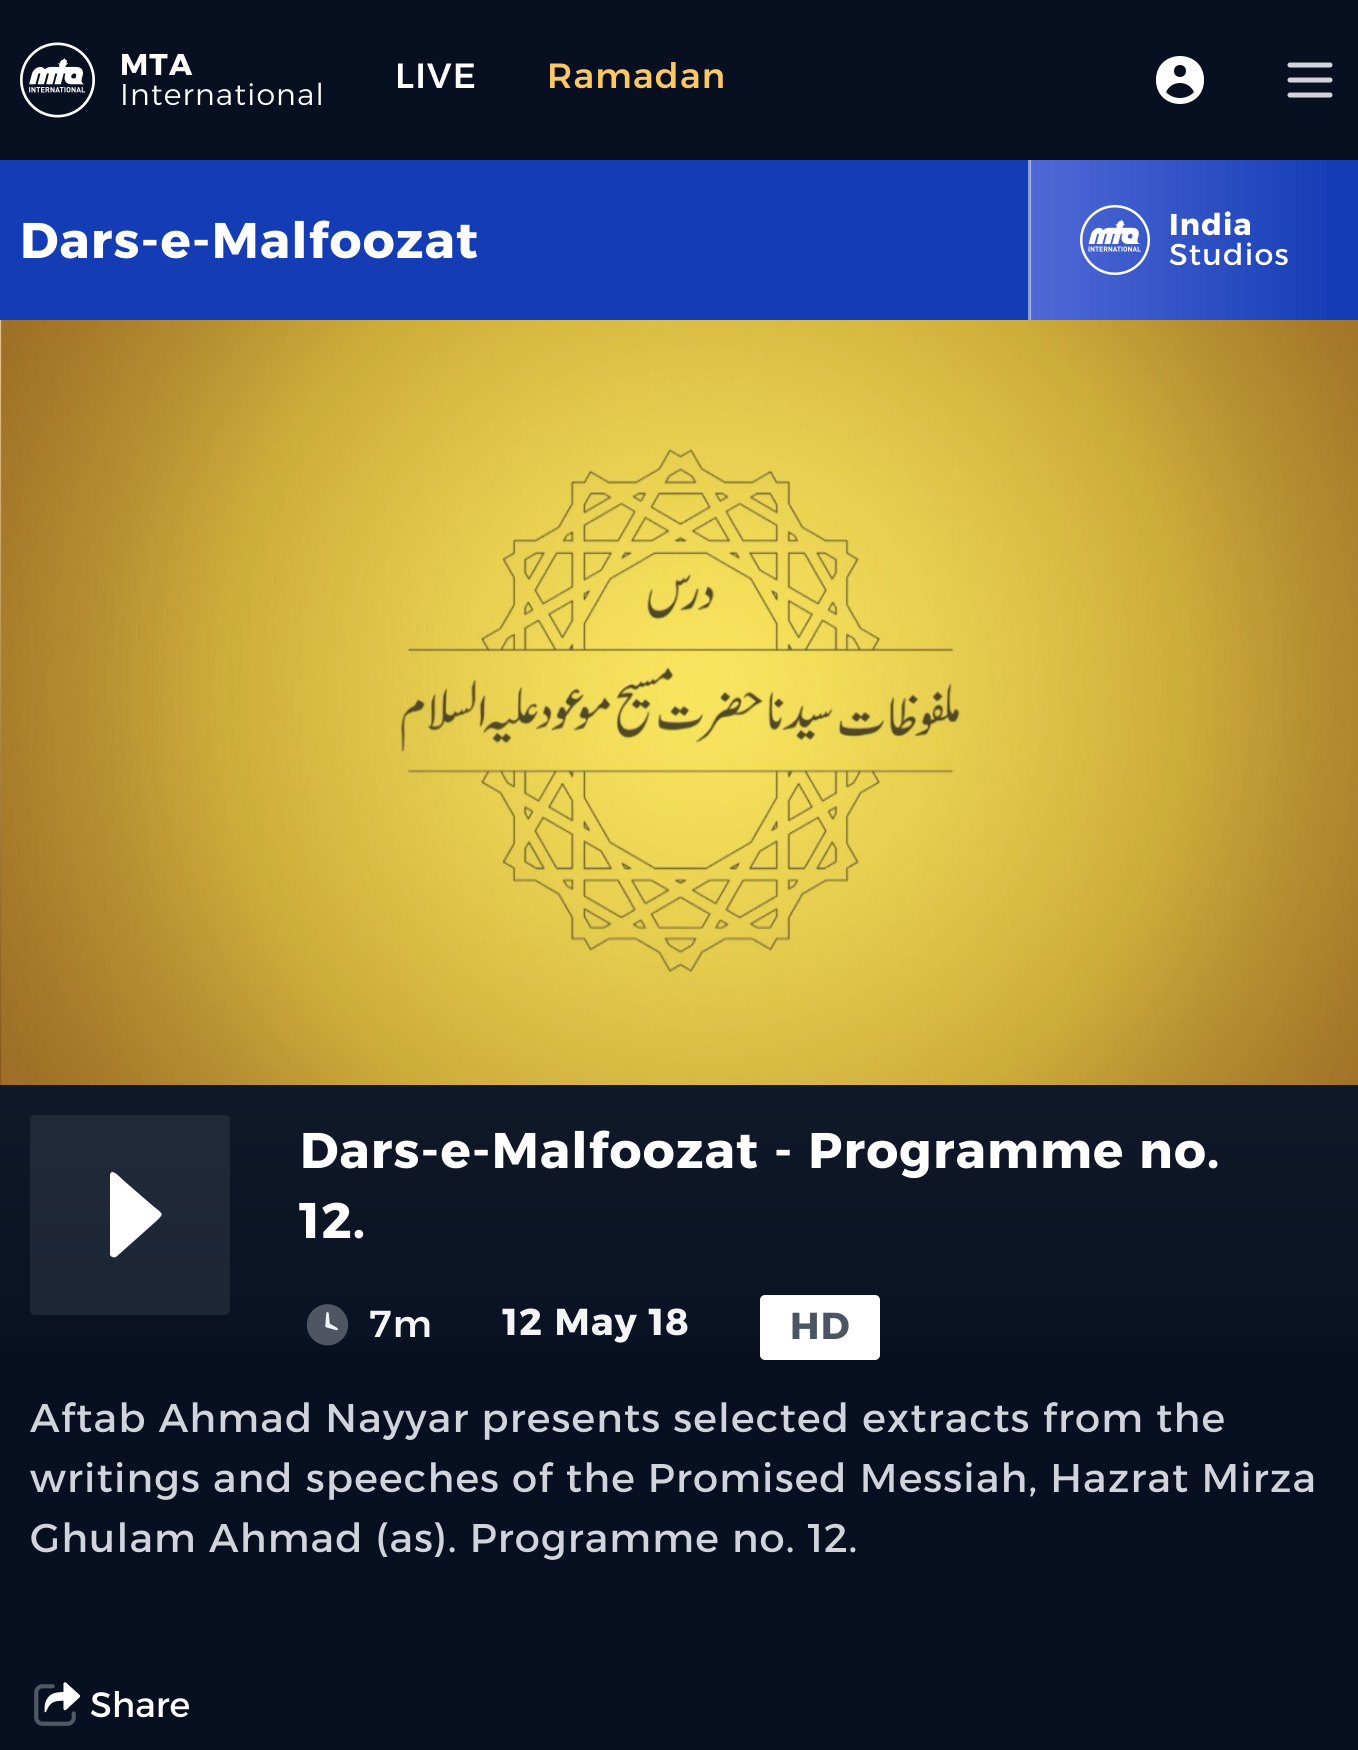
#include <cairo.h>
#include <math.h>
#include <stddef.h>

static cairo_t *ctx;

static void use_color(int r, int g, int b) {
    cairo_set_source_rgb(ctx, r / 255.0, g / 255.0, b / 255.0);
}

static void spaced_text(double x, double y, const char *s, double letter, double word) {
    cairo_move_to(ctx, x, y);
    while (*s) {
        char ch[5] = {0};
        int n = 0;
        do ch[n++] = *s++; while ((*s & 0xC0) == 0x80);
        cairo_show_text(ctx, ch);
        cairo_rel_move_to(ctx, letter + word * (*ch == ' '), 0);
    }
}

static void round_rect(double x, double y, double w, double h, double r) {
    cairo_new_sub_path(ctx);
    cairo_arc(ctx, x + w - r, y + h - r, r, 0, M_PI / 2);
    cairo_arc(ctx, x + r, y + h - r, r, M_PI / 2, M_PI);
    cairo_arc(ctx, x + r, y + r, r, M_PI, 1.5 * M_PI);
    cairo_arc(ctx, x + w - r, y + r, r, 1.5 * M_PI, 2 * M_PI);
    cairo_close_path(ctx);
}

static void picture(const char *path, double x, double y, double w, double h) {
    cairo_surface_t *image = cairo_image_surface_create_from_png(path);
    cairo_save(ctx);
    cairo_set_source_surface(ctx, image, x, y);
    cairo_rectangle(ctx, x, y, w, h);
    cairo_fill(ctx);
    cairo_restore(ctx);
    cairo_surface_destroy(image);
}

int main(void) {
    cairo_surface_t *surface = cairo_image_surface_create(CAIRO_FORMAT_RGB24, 1358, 1750);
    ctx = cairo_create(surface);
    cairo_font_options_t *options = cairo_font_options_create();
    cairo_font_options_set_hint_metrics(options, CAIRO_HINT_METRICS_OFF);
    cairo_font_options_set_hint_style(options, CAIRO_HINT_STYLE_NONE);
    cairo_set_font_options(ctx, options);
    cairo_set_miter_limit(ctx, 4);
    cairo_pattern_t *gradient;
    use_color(7, 15, 33);
    cairo_paint(ctx);
    picture("img1.png", 20, 42, 75, 76);
    cairo_select_font_face(ctx, "Alexandria", CAIRO_FONT_SLANT_NORMAL, CAIRO_FONT_WEIGHT_BOLD);
    cairo_set_font_size(ctx, 30);
    use_color(255, 255, 255);
    spaced_text(120, 75, "MTA", 1.2, 0);
    cairo_select_font_face(ctx, "Alexandria Light", CAIRO_FONT_SLANT_NORMAL, CAIRO_FONT_WEIGHT_NORMAL);
    spaced_text(120, 105, "International", 1.2, 0);
    cairo_select_font_face(ctx, "Alexandria Medium", CAIRO_FONT_SLANT_NORMAL, CAIRO_FONT_WEIGHT_NORMAL);
    cairo_set_font_size(ctx, 35);
    spaced_text(395, 88, "LIVE", 1.2, 0);
    use_color(250, 200, 100);
    spaced_text(547, 88, "Ramadan", 1.2, 0);
    use_color(255, 255, 255);
    cairo_set_fill_rule(ctx, CAIRO_FILL_RULE_EVEN_ODD);
    cairo_new_path(ctx);
    cairo_move_to(ctx, 1204, 80);
    cairo_curve_to(ctx, 1204, 112, 1156, 112, 1156, 80);
    cairo_curve_to(ctx, 1156, 48, 1204, 48, 1204, 80);
    cairo_close_path(ctx);
    cairo_move_to(ctx, 1186, 71);
    cairo_curve_to(ctx, 1186, 79, 1174, 79, 1174, 71);
    cairo_curve_to(ctx, 1174, 63, 1186, 63, 1186, 71);
    cairo_close_path(ctx);
    cairo_move_to(ctx, 1180, 83);
    cairo_curve_to(ctx, 1174, 83, 1169, 86, 1166, 92);
    cairo_curve_to(ctx, 1173, 100, 1187, 100, 1194, 92);
    cairo_curve_to(ctx, 1191, 86, 1186, 83, 1180, 83);
    cairo_close_path(ctx);
    cairo_fill(ctx);
    cairo_new_path(ctx);
    cairo_move_to(ctx, 1290, 65);
    cairo_line_to(ctx, 1330, 65);
    cairo_move_to(ctx, 1290, 80);
    cairo_line_to(ctx, 1330, 80);
    cairo_move_to(ctx, 1290, 95);
    cairo_line_to(ctx, 1330, 95);
    use_color(209, 213, 219);
    cairo_set_line_width(ctx, 5);
    cairo_set_line_cap(ctx, CAIRO_LINE_CAP_ROUND);
    cairo_set_line_join(ctx, CAIRO_LINE_JOIN_ROUND);
    cairo_stroke(ctx);
    use_color(20, 60, 180);
    cairo_rectangle(ctx, 0, 160, 1358, 160);
    cairo_fill(ctx);
    use_color(138, 158, 218);
    cairo_rectangle(ctx, 1028, 160, 2, 160);
    cairo_fill(ctx);
    cairo_select_font_face(ctx, "Alexandria", CAIRO_FONT_SLANT_NORMAL, CAIRO_FONT_WEIGHT_BOLD);
    cairo_set_font_size(ctx, 50);
    use_color(255, 255, 255);
    spaced_text(20, 258, "Dars-e-Malfoozat", 1.2, 0);
    gradient = cairo_pattern_create_linear(1030, 240, 1340, 240);
    cairo_pattern_add_color_stop_rgba(gradient, 0, 0.314, 0.412, 0.843, 1);
    cairo_pattern_add_color_stop_rgba(gradient, 1, 0.078, 0.235, 0.706, 1);
    cairo_set_source(ctx, gradient);
    cairo_pattern_destroy(gradient);
    cairo_rectangle(ctx, 1031, 160, 296, 160);
    cairo_fill(ctx);
    gradient = cairo_pattern_create_linear(1030, 240, 1340, 240);
    cairo_pattern_add_color_stop_rgba(gradient, 0, 0.659, 0.706, 0.922, 1);
    cairo_pattern_add_color_stop_rgba(gradient, 1, 0.541, 0.62, 0.855, 1);
    cairo_set_source(ctx, gradient);
    cairo_pattern_destroy(gradient);
    cairo_rectangle(ctx, 1030, 160, 1, 160);
    cairo_fill(ctx);
    picture("img2.png", 1080, 205, 70, 70);
    cairo_set_font_size(ctx, 30);
    use_color(255, 255, 255);
    spaced_text(1169, 235, "India", 1.2, 0);
    cairo_select_font_face(ctx, "Alexandria", CAIRO_FONT_SLANT_NORMAL, CAIRO_FONT_WEIGHT_NORMAL);
    spaced_text(1169, 265, "Studios", 1.2, 0);
    picture("img3.png", 0, 320, 1358, 765);
    gradient = cairo_pattern_create_linear(680, 1085, 680, 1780);
    cairo_pattern_add_color_stop_rgba(gradient, 0, 0.067, 0.094, 0.157, 1);
    cairo_pattern_add_color_stop_rgba(gradient, 0.5, 0.027, 0.059, 0.129, 1);
    cairo_pattern_add_color_stop_rgba(gradient, 1, 0.027, 0.059, 0.129, 1);
    cairo_set_source(ctx, gradient);
    cairo_pattern_destroy(gradient);
    cairo_rectangle(ctx, 0, 1085, 1358, 261);
    cairo_fill(ctx);
    cairo_set_source_rgba(ctx, 0.294, 0.333, 0.388, 0.3);
    round_rect(30, 1115, 200, 200, 5);
    cairo_fill(ctx);
    use_color(255, 255, 255);
    cairo_new_path(ctx);
    cairo_move_to(ctx, 116, 1257);
    cairo_line_to(ctx, 153, 1224);
    cairo_curve_to(ctx, 165, 1213, 164, 1215, 153, 1206);
    cairo_line_to(ctx, 123, 1180);
    cairo_curve_to(ctx, 118, 1175, 111, 1168, 110, 1175);
    cairo_line_to(ctx, 110, 1255);
    cairo_curve_to(ctx, 111, 1257, 114, 1258, 116, 1257);
    cairo_close_path(ctx);
    cairo_fill(ctx);
    cairo_select_font_face(ctx, "Alexandria", CAIRO_FONT_SLANT_NORMAL, CAIRO_FONT_WEIGHT_BOLD);
    cairo_set_font_size(ctx, 50);
    spaced_text(300, 1168, "Dars-e-Malfoozat - Programme no.", 1.2, 0);
    spaced_text(300, 1238, "12.", 1.2, 0);
    picture("img4.png", 306, 1304, 43, 42);
    cairo_select_font_face(ctx, "Alexandria Medium", CAIRO_FONT_SLANT_NORMAL, CAIRO_FONT_WEIGHT_NORMAL);
    cairo_set_font_size(ctx, 37.5);
    use_color(243, 244, 246);
    spaced_text(370, 1337, "7m", 1.2, 0);
    cairo_select_font_face(ctx, "Alexandria", CAIRO_FONT_SLANT_NORMAL, CAIRO_FONT_WEIGHT_BOLD);
    spaced_text(503, 1335, "12 May 18", 1.2, 0);
    use_color(255, 255, 255);
    round_rect(760, 1295, 120, 65, 5);
    cairo_fill(ctx);
    use_color(75, 85, 99);
    spaced_text(790, 1339, "HD", 1.2, 0);
    cairo_select_font_face(ctx, "Alexandria", CAIRO_FONT_SLANT_NORMAL, CAIRO_FONT_WEIGHT_NORMAL);
    cairo_set_font_size(ctx, 40);
    use_color(209, 213, 219);
    spaced_text(30, 1432, "Aftab Ahmad Nayyar presents selected extracts from the", 1.2, 0);
    spaced_text(30, 1492, "writings and speeches of the Promised Messiah, Hazrat Mirza", 1.2, 0);
    spaced_text(30, 1552, "Ghulam Ahmad (as). Programme no. 12.", 1.2, 0);
    picture("img5.png", 34, 1682, 46, 44);
    cairo_set_font_size(ctx, 35);
    use_color(255, 255, 255);
    cairo_move_to(ctx, 90, 1717);
    cairo_show_text(ctx, "Share");
    cairo_surface_write_to_png(surface, "result.png");
    cairo_font_options_destroy(options);
    cairo_destroy(ctx);
    cairo_surface_destroy(surface);
    return 0;
}
